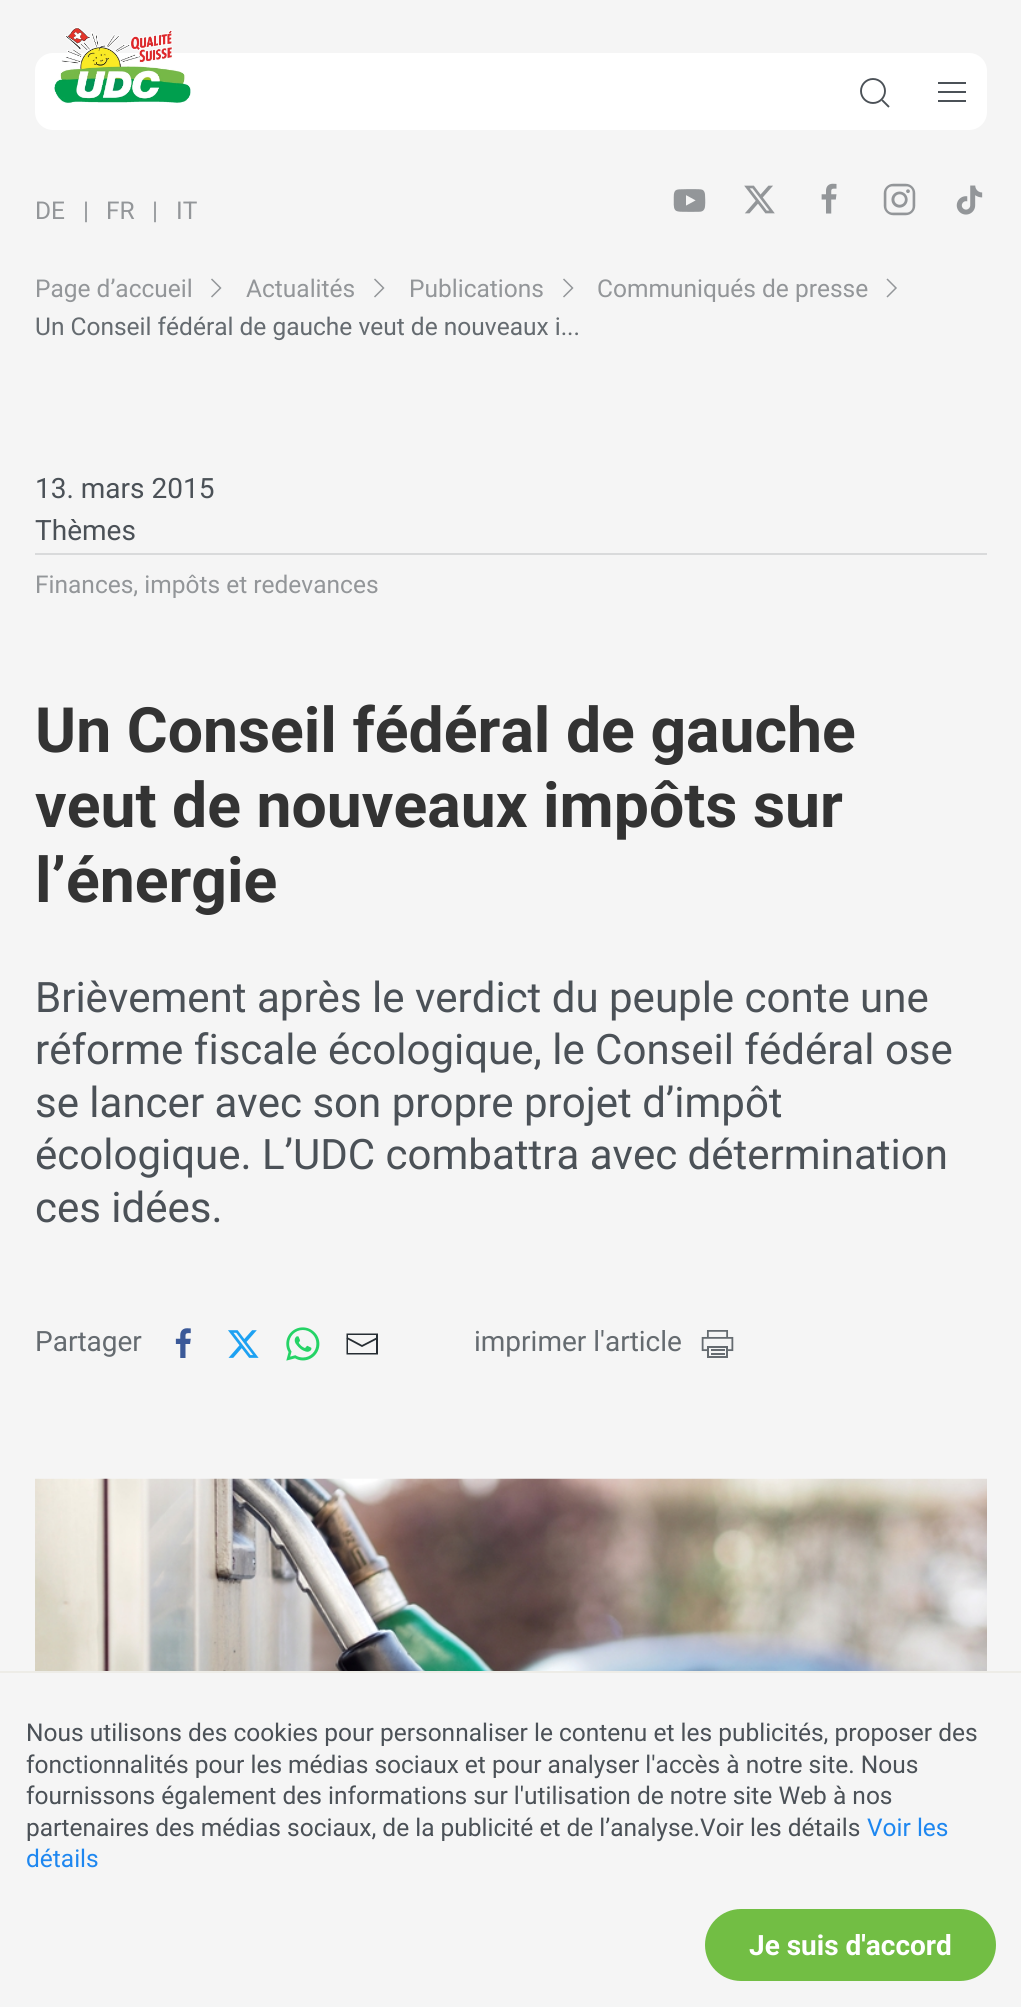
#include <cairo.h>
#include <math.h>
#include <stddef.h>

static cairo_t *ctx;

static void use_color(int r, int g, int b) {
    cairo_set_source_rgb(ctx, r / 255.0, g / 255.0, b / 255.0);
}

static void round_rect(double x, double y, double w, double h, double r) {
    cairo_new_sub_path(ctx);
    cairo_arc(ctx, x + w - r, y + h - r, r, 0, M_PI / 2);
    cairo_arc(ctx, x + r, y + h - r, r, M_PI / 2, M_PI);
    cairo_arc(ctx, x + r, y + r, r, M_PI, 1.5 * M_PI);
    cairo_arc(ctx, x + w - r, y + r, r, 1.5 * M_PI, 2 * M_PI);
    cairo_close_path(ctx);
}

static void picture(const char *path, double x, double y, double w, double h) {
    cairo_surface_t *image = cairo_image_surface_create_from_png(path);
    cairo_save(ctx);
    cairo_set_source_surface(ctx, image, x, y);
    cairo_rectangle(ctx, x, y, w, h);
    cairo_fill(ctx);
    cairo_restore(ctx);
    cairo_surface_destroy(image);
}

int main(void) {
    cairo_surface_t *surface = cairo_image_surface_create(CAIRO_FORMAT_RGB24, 1021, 2007);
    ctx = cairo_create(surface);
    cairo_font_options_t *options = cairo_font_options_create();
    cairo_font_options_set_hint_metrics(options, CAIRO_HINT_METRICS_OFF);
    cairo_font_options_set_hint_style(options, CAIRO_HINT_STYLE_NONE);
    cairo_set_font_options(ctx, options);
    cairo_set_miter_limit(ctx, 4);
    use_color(245, 245, 245);
    cairo_paint(ctx);
    use_color(255, 255, 255);
    round_rect(35, 53, 952, 77, 18);
    cairo_fill(ctx);
    picture("img1.png", 54, 27, 137, 77);
    cairo_arc(ctx, 873, 91, 12, 0, 2 * M_PI);
    use_color(75, 81, 87);
    cairo_set_line_width(ctx, 1.9);
    cairo_stroke(ctx);
    cairo_new_path(ctx);
    cairo_move_to(ctx, 882, 100);
    cairo_line_to(ctx, 889, 107);
    cairo_close_path(ctx);
    cairo_stroke(ctx);
    cairo_rectangle(ctx, 938, 82, 28, 2);
    cairo_fill(ctx);
    cairo_rectangle(ctx, 938, 91, 28, 2);
    cairo_fill(ctx);
    cairo_rectangle(ctx, 938, 100, 28, 2);
    cairo_fill(ctx);
    cairo_select_font_face(ctx, "Roboto", CAIRO_FONT_SLANT_NORMAL, CAIRO_FONT_WEIGHT_NORMAL);
    cairo_set_font_size(ctx, 24.5);
    use_color(147, 150, 153);
    cairo_move_to(ctx, 35, 219);
    cairo_show_text(ctx, "DE");
    cairo_move_to(ctx, 83, 219);
    cairo_show_text(ctx, "|");
    cairo_move_to(ctx, 106, 219);
    cairo_show_text(ctx, "FR");
    cairo_move_to(ctx, 152, 219);
    cairo_show_text(ctx, "|");
    cairo_move_to(ctx, 176, 219);
    cairo_show_text(ctx, "IT");
    picture("img2.png", 673, 189, 33, 23);
    picture("img3.png", 744, 185, 31, 29);
    picture("img4.png", 821, 183, 16, 31);
    picture("img5.png", 883, 183, 33, 33);
    picture("img6.png", 956, 185, 27, 30);
    cairo_move_to(ctx, 35, 297);
    cairo_show_text(ctx, "Page d’accueil");
    cairo_new_path(ctx);
    cairo_move_to(ctx, 211.5, 279);
    cairo_line_to(ctx, 220.5, 288);
    cairo_line_to(ctx, 211.5, 297);
    cairo_set_line_width(ctx, 1.5);
    cairo_stroke(ctx);
    cairo_move_to(ctx, 246, 297);
    cairo_show_text(ctx, "Actualités");
    cairo_new_path(ctx);
    cairo_move_to(ctx, 374.5, 279);
    cairo_line_to(ctx, 383.5, 288);
    cairo_line_to(ctx, 374.5, 297);
    cairo_stroke(ctx);
    cairo_move_to(ctx, 409, 297);
    cairo_show_text(ctx, "Publications");
    cairo_new_path(ctx);
    cairo_move_to(ctx, 563.5, 279);
    cairo_line_to(ctx, 572.5, 288);
    cairo_line_to(ctx, 563.5, 297);
    cairo_stroke(ctx);
    cairo_move_to(ctx, 597, 297);
    cairo_show_text(ctx, "Communiqués de presse");
    cairo_new_path(ctx);
    cairo_move_to(ctx, 887, 279);
    cairo_line_to(ctx, 896, 288);
    cairo_line_to(ctx, 887, 297);
    cairo_stroke(ctx);
    use_color(101, 107, 112);
    cairo_move_to(ctx, 35, 335);
    cairo_show_text(ctx, "Un Conseil fédéral de gauche veut de nouveaux i...");
    cairo_set_font_size(ctx, 28);
    use_color(75, 81, 87);
    cairo_move_to(ctx, 35, 498);
    cairo_show_text(ctx, "13. mars 2015");
    use_color(217, 218, 219);
    cairo_rectangle(ctx, 35, 553, 952, 2);
    cairo_fill(ctx);
    use_color(75, 81, 87);
    cairo_move_to(ctx, 35, 540);
    cairo_show_text(ctx, "Thèmes");
    cairo_set_font_size(ctx, 24.5);
    use_color(147, 150, 153);
    cairo_move_to(ctx, 35, 593);
    cairo_show_text(ctx, "Finances, impôts et redevances");
    cairo_select_font_face(ctx, "Roboto", CAIRO_FONT_SLANT_NORMAL, CAIRO_FONT_WEIGHT_BOLD);
    cairo_set_font_size(ctx, 62.5);
    use_color(51, 51, 51);
    cairo_move_to(ctx, 35, 752);
    cairo_show_text(ctx, "Un Conseil fédéral de gauche");
    cairo_move_to(ctx, 35, 827);
    cairo_show_text(ctx, "veut de nouveaux impôts sur");
    cairo_move_to(ctx, 35, 902);
    cairo_show_text(ctx, "l’énergie");
    cairo_select_font_face(ctx, "Roboto", CAIRO_FONT_SLANT_NORMAL, CAIRO_FONT_WEIGHT_NORMAL);
    cairo_set_font_size(ctx, 42);
    use_color(75, 81, 87);
    cairo_move_to(ctx, 35, 1012);
    cairo_show_text(ctx, "Brièvement après le verdict du peuple conte une");
    cairo_move_to(ctx, 35, 1064);
    cairo_show_text(ctx, "réforme fiscale écologique, le Conseil fédéral ose");
    cairo_move_to(ctx, 35, 1117);
    cairo_show_text(ctx, "se lancer avec son propre projet d’impôt");
    cairo_move_to(ctx, 35, 1169);
    cairo_show_text(ctx, "écologique. L’UDC combattra avec détermination");
    cairo_move_to(ctx, 35, 1222);
    cairo_show_text(ctx, "ces idées.");
    cairo_set_font_size(ctx, 28);
    use_color(101, 107, 112);
    cairo_move_to(ctx, 35, 1351);
    cairo_show_text(ctx, "Partager");
    picture("img7.png", 175, 1328, 16, 30);
    picture("img8.png", 228, 1330, 31, 28);
    picture("img9.png", 286, 1327, 34, 34);
    cairo_new_path(ctx);
    cairo_move_to(ctx, 347, 1338);
    cairo_line_to(ctx, 362, 1346);
    cairo_line_to(ctx, 377.5, 1338);
    use_color(38, 45, 51);
    cairo_set_line_width(ctx, 1.8);
    cairo_stroke(ctx);
    cairo_new_path(ctx);
    cairo_move_to(ctx, 346.5, 1333.5);
    cairo_line_to(ctx, 346.5, 1354.5);
    cairo_line_to(ctx, 378, 1354.5);
    cairo_line_to(ctx, 378, 1333.5);
    cairo_close_path(ctx);
    cairo_move_to(ctx, 376, 1353);
    cairo_line_to(ctx, 348, 1353);
    cairo_line_to(ctx, 348, 1335);
    cairo_line_to(ctx, 376, 1335);
    cairo_close_path(ctx);
    cairo_fill(ctx);
    use_color(101, 107, 112);
    cairo_move_to(ctx, 474, 1351);
    cairo_show_text(ctx, "imprimer l'article");
    picture("img10.png", 701, 1330, 33, 28);
    picture("img11.png", 35, 1478, 952, 193);
    use_color(237, 236, 231);
    cairo_rectangle(ctx, 0, 1671, 1021, 2);
    cairo_fill(ctx);
    cairo_set_font_size(ctx, 24.5);
    use_color(75, 81, 87);
    cairo_move_to(ctx, 26, 1741);
    cairo_show_text(ctx, "Nous utilisons des cookies pour personnaliser le contenu et les publicités, proposer des");
    cairo_move_to(ctx, 26, 1773);
    cairo_show_text(ctx, "fonctionnalités pour les médias sociaux et pour analyser l'accès à notre site. Nous");
    cairo_move_to(ctx, 26, 1804);
    cairo_show_text(ctx, "fournissons également des informations sur l'utilisation de notre site Web à nos");
    cairo_move_to(ctx, 26, 1836);
    cairo_show_text(ctx, "partenaires des médias sociaux, de la publicité et de l’analyse.Voir les détails");
    use_color(30, 135, 240);
    cairo_move_to(ctx, 867, 1836);
    cairo_show_text(ctx, "Voir les");
    cairo_move_to(ctx, 26, 1867);
    cairo_show_text(ctx, "détails");
    use_color(114, 190, 68);
    round_rect(705, 1909, 291, 72, 36);
    cairo_fill(ctx);
    cairo_select_font_face(ctx, "Roboto", CAIRO_FONT_SLANT_NORMAL, CAIRO_FONT_WEIGHT_BOLD);
    cairo_set_font_size(ctx, 28);
    use_color(255, 255, 255);
    cairo_move_to(ctx, 749, 1955);
    cairo_show_text(ctx, "Je suis d'accord");
    cairo_surface_write_to_png(surface, "result.png");
    cairo_font_options_destroy(options);
    cairo_destroy(ctx);
    cairo_surface_destroy(surface);
    return 0;
}
